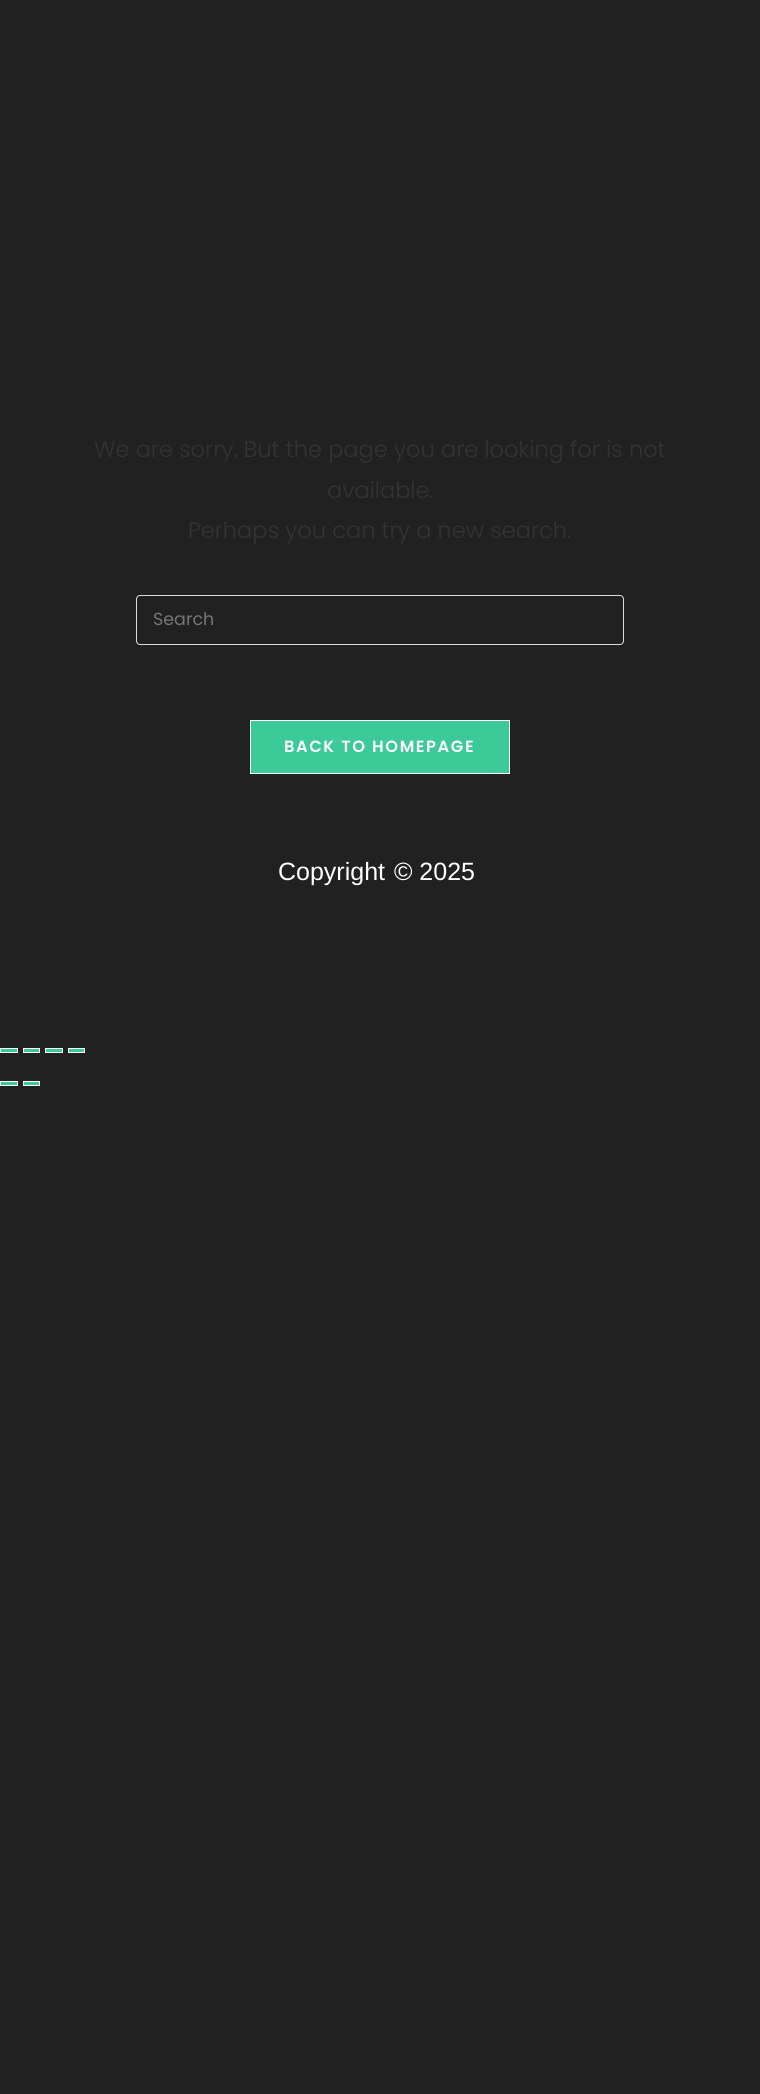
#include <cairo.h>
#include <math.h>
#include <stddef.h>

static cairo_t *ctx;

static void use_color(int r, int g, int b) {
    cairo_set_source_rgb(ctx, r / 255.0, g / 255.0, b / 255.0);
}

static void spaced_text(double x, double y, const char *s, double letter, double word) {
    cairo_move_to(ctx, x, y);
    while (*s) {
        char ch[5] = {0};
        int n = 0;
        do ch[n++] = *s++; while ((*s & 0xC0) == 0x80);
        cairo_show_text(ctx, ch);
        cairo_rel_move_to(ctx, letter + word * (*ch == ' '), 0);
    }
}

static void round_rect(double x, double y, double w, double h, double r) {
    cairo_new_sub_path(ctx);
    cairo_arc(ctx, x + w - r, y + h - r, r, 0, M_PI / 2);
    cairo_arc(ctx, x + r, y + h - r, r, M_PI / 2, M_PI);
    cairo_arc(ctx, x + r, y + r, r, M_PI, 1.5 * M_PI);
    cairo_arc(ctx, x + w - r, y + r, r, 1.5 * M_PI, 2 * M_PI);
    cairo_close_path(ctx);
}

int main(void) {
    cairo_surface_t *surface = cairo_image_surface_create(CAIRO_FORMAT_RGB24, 760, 2094);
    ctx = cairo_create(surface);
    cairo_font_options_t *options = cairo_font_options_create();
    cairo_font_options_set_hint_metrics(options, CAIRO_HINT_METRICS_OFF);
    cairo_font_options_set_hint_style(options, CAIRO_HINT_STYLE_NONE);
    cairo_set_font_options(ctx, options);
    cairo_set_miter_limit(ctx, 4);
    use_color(33, 33, 33);
    cairo_paint(ctx);
    cairo_select_font_face(ctx, "Poppins Light", CAIRO_FONT_SLANT_NORMAL, CAIRO_FONT_WEIGHT_NORMAL);
    cairo_set_font_size(ctx, 22.5);
    use_color(51, 51, 51);
    cairo_move_to(ctx, 94, 457);
    cairo_show_text(ctx, "We are sorry. But the page you are looking for is not");
    cairo_move_to(ctx, 327, 498);
    cairo_show_text(ctx, "available.");
    cairo_move_to(ctx, 188, 538);
    cairo_show_text(ctx, "Perhaps you can try a new search.");
    round_rect(136.5, 595.5, 487, 49, 3.5);
    use_color(221, 221, 221);
    cairo_set_line_width(ctx, 1);
    cairo_stroke(ctx);
    cairo_select_font_face(ctx, "Poppins", CAIRO_FONT_SLANT_NORMAL, CAIRO_FONT_WEIGHT_NORMAL);
    cairo_set_font_size(ctx, 17.5);
    use_color(117, 117, 117);
    cairo_move_to(ctx, 153, 625);
    cairo_show_text(ctx, "Search");
    use_color(60, 202, 152);
    cairo_rectangle(ctx, 250.5, 720.5, 259, 53);
    cairo_fill_preserve(ctx);
    use_color(255, 255, 255);
    cairo_stroke(ctx);
    cairo_select_font_face(ctx, "Poppins SemiBold", CAIRO_FONT_SLANT_NORMAL, CAIRO_FONT_WEIGHT_NORMAL);
    cairo_set_font_size(ctx, 16.25);
    spaced_text(284, 752, "BACK TO HOMEPAGE", 1.6, 0);
    cairo_select_font_face(ctx, "Liberation Sans", CAIRO_FONT_SLANT_NORMAL, CAIRO_FONT_WEIGHT_NORMAL);
    cairo_set_font_size(ctx, 25);
    cairo_move_to(ctx, 278, 880);
    cairo_show_text(ctx, "Copyright");
    cairo_move_to(ctx, 394, 880);
    cairo_show_text(ctx, "© 2025");
    use_color(60, 202, 152);
    cairo_rectangle(ctx, 0.5, 1048.5, 17, 4);
    cairo_fill_preserve(ctx);
    use_color(255, 255, 255);
    cairo_stroke(ctx);
    use_color(60, 202, 152);
    cairo_rectangle(ctx, 23.5, 1048.5, 16, 4);
    cairo_fill_preserve(ctx);
    use_color(255, 255, 255);
    cairo_stroke(ctx);
    use_color(60, 202, 152);
    cairo_rectangle(ctx, 45.5, 1048.5, 17, 4);
    cairo_fill_preserve(ctx);
    use_color(255, 255, 255);
    cairo_stroke(ctx);
    use_color(60, 202, 152);
    cairo_rectangle(ctx, 68.5, 1048.5, 16, 4);
    cairo_fill_preserve(ctx);
    use_color(255, 255, 255);
    cairo_stroke(ctx);
    use_color(60, 202, 152);
    cairo_rectangle(ctx, 0.5, 1081.5, 17, 4);
    cairo_fill_preserve(ctx);
    use_color(255, 255, 255);
    cairo_stroke(ctx);
    use_color(60, 202, 152);
    cairo_rectangle(ctx, 23.5, 1081.5, 16, 4);
    cairo_fill_preserve(ctx);
    use_color(255, 255, 255);
    cairo_stroke(ctx);
    cairo_surface_write_to_png(surface, "result.png");
    cairo_font_options_destroy(options);
    cairo_destroy(ctx);
    cairo_surface_destroy(surface);
    return 0;
}
